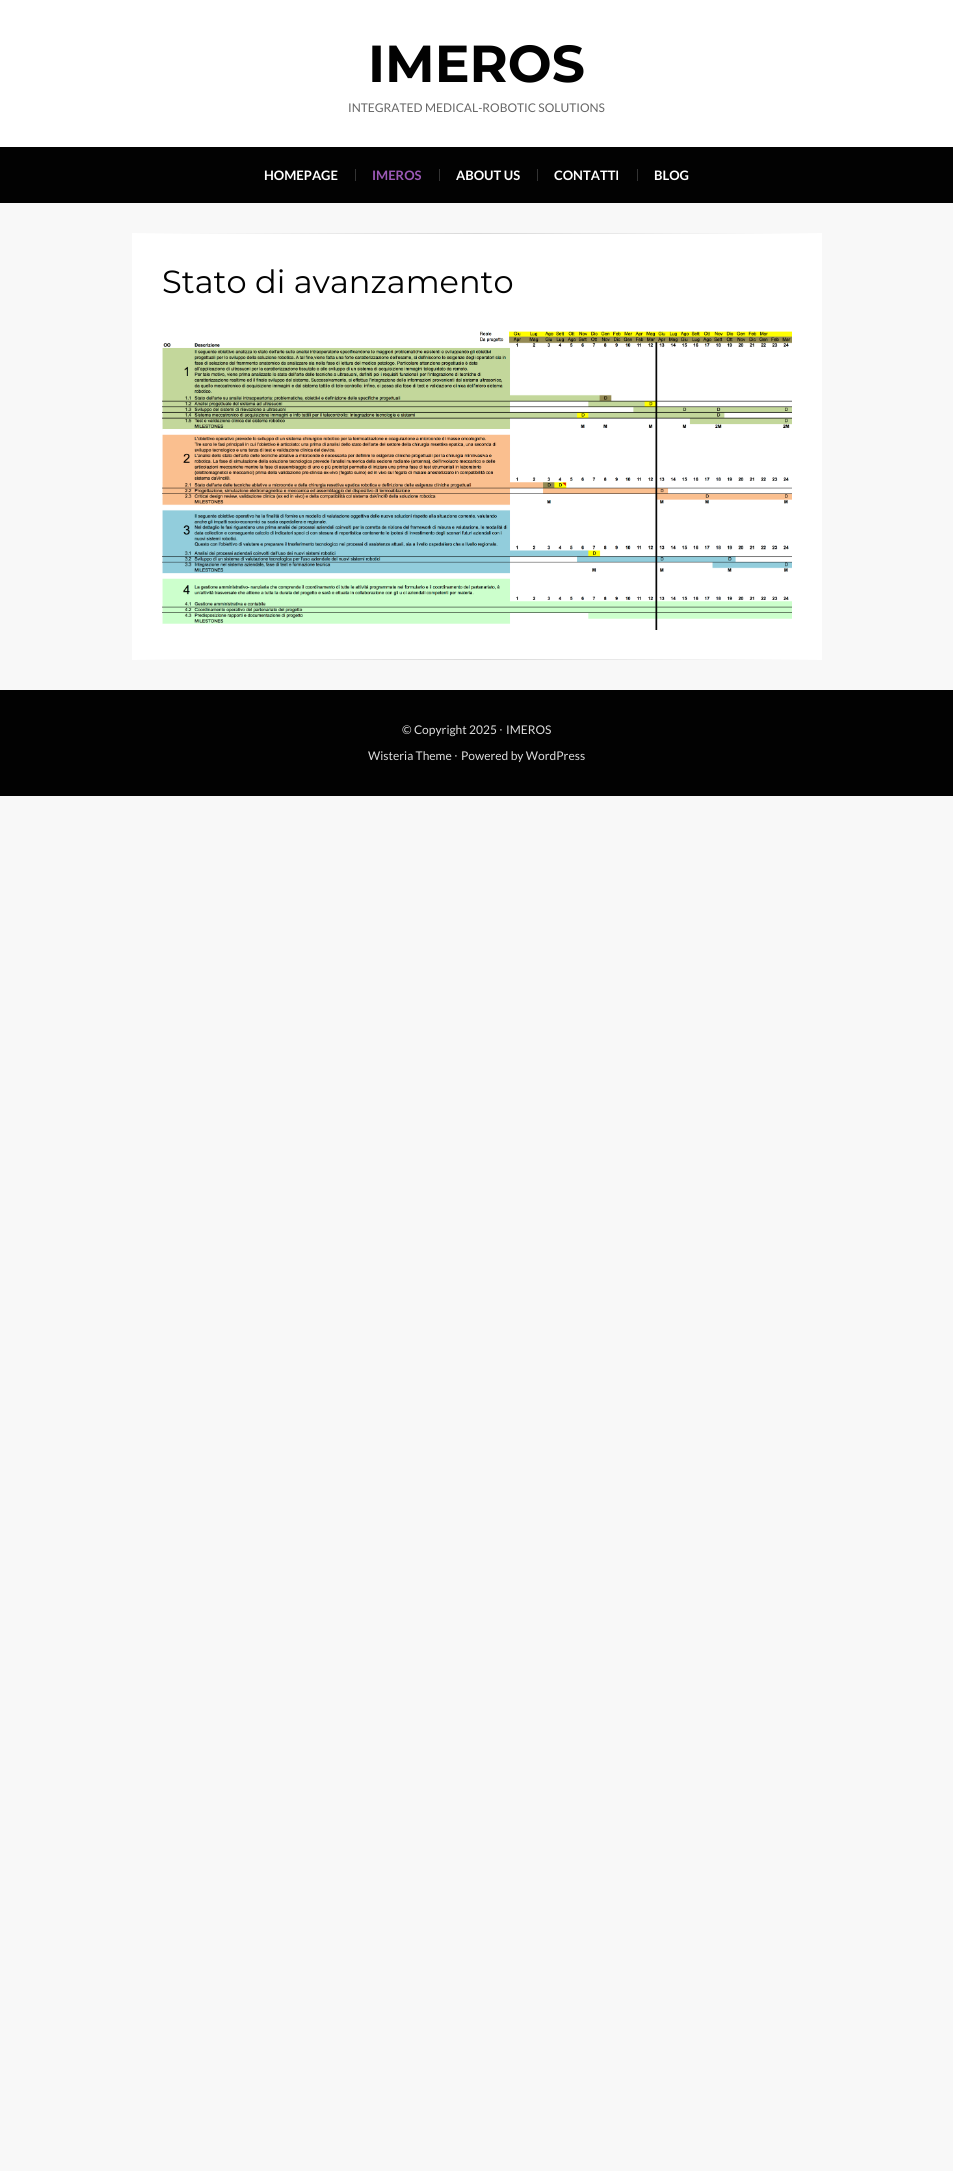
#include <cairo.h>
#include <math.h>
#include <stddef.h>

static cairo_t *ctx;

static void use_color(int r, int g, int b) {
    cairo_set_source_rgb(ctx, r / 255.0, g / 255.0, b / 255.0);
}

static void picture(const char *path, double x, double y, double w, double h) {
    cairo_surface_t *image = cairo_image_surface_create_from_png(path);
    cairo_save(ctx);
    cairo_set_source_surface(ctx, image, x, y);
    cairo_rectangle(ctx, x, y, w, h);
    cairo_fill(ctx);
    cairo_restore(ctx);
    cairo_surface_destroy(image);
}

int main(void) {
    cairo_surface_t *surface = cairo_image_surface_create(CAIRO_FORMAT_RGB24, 953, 2171);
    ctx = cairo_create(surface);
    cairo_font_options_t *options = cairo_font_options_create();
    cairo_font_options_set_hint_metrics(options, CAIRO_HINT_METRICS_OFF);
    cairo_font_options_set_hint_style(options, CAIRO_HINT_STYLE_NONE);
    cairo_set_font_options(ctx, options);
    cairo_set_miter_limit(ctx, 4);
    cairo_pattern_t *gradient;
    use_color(248, 248, 248);
    cairo_paint(ctx);
    use_color(255, 255, 255);
    cairo_rectangle(ctx, 0, 0, 953, 147);
    cairo_fill(ctx);
    cairo_select_font_face(ctx, "Montserrat", CAIRO_FONT_SLANT_NORMAL, CAIRO_FONT_WEIGHT_BOLD);
    cairo_set_font_size(ctx, 52);
    use_color(2, 2, 2);
    cairo_move_to(ctx, 368, 82);
    cairo_show_text(ctx, "IMEROS");
    cairo_select_font_face(ctx, "Lato", CAIRO_FONT_SLANT_NORMAL, CAIRO_FONT_WEIGHT_NORMAL);
    cairo_set_font_size(ctx, 12);
    use_color(102, 102, 102);
    cairo_move_to(ctx, 348, 112);
    cairo_show_text(ctx, "INTEGRATED MEDICAL-ROBOTIC SOLUTIONS");
    use_color(2, 2, 2);
    cairo_rectangle(ctx, 0, 147, 953, 56);
    cairo_fill(ctx);
    cairo_select_font_face(ctx, "Lato", CAIRO_FONT_SLANT_NORMAL, CAIRO_FONT_WEIGHT_BOLD);
    cairo_set_font_size(ctx, 13);
    use_color(255, 255, 255);
    cairo_move_to(ctx, 264, 180);
    cairo_show_text(ctx, "HOMEPAGE");
    use_color(51, 51, 51);
    cairo_rectangle(ctx, 355, 169, 1, 12);
    cairo_fill(ctx);
    use_color(155, 89, 182);
    cairo_move_to(ctx, 372, 180);
    cairo_show_text(ctx, "IMEROS");
    use_color(51, 51, 51);
    cairo_rectangle(ctx, 439, 169, 1, 12);
    cairo_fill(ctx);
    use_color(255, 255, 255);
    cairo_move_to(ctx, 456, 180);
    cairo_show_text(ctx, "ABOUT US");
    use_color(51, 51, 51);
    cairo_rectangle(ctx, 537, 169, 1, 12);
    cairo_fill(ctx);
    use_color(255, 255, 255);
    cairo_move_to(ctx, 554, 180);
    cairo_show_text(ctx, "CONTATTI");
    use_color(51, 51, 51);
    cairo_rectangle(ctx, 637, 169, 1, 12);
    cairo_fill(ctx);
    use_color(255, 255, 255);
    cairo_move_to(ctx, 654, 180);
    cairo_show_text(ctx, "BLOG");
    cairo_rectangle(ctx, 132, 234, 690, 425);
    cairo_fill(ctx);
    gradient = cairo_pattern_create_linear(132, 234, 822, 233);
    cairo_pattern_add_color_stop_rgba(gradient, 0, 1, 1, 1, 1);
    cairo_pattern_add_color_stop_rgba(gradient, 0.5, 0.851, 0.851, 0.851, 1);
    cairo_pattern_add_color_stop_rgba(gradient, 1, 1, 1, 1, 1);
    cairo_set_source(ctx, gradient);
    cairo_pattern_destroy(gradient);
    cairo_rectangle(ctx, 132, 233, 690, 1);
    cairo_fill(ctx);
    cairo_select_font_face(ctx, "Montserrat", CAIRO_FONT_SLANT_NORMAL, CAIRO_FONT_WEIGHT_NORMAL);
    cairo_set_font_size(ctx, 32);
    use_color(2, 2, 2);
    cairo_move_to(ctx, 162, 293);
    cairo_show_text(ctx, "Stato di avanzamento");
    picture("img1.png", 162, 331, 630, 299);
    gradient = cairo_pattern_create_linear(132, 660, 822, 660);
    cairo_pattern_add_color_stop_rgba(gradient, 0, 1, 1, 1, 1);
    cairo_pattern_add_color_stop_rgba(gradient, 0.5, 0.851, 0.851, 0.851, 1);
    cairo_pattern_add_color_stop_rgba(gradient, 1, 1, 1, 1, 1);
    cairo_set_source(ctx, gradient);
    cairo_pattern_destroy(gradient);
    cairo_rectangle(ctx, 132, 659, 690, 1);
    cairo_fill(ctx);
    use_color(2, 2, 2);
    cairo_rectangle(ctx, 0, 690, 953, 106);
    cairo_fill(ctx);
    cairo_select_font_face(ctx, "Lato", CAIRO_FONT_SLANT_NORMAL, CAIRO_FONT_WEIGHT_NORMAL);
    cairo_set_font_size(ctx, 12);
    use_color(221, 221, 221);
    cairo_move_to(ctx, 402, 734);
    cairo_show_text(ctx, "© Copyright 2025");
    cairo_select_font_face(ctx, "DejaVu Sans", CAIRO_FONT_SLANT_NORMAL, CAIRO_FONT_WEIGHT_NORMAL);
    cairo_move_to(ctx, 499, 734);
    cairo_show_text(ctx, "⋅");
    cairo_select_font_face(ctx, "Lato", CAIRO_FONT_SLANT_NORMAL, CAIRO_FONT_WEIGHT_NORMAL);
    cairo_move_to(ctx, 506, 734);
    cairo_show_text(ctx, "IMEROS");
    cairo_move_to(ctx, 368, 760);
    cairo_show_text(ctx, "Wisteria Theme");
    cairo_select_font_face(ctx, "DejaVu Sans", CAIRO_FONT_SLANT_NORMAL, CAIRO_FONT_WEIGHT_NORMAL);
    cairo_move_to(ctx, 454, 760);
    cairo_show_text(ctx, "⋅");
    cairo_select_font_face(ctx, "Lato", CAIRO_FONT_SLANT_NORMAL, CAIRO_FONT_WEIGHT_NORMAL);
    cairo_move_to(ctx, 461, 760);
    cairo_show_text(ctx, "Powered by WordPress");
    cairo_surface_write_to_png(surface, "result.png");
    cairo_font_options_destroy(options);
    cairo_destroy(ctx);
    cairo_surface_destroy(surface);
    return 0;
}
